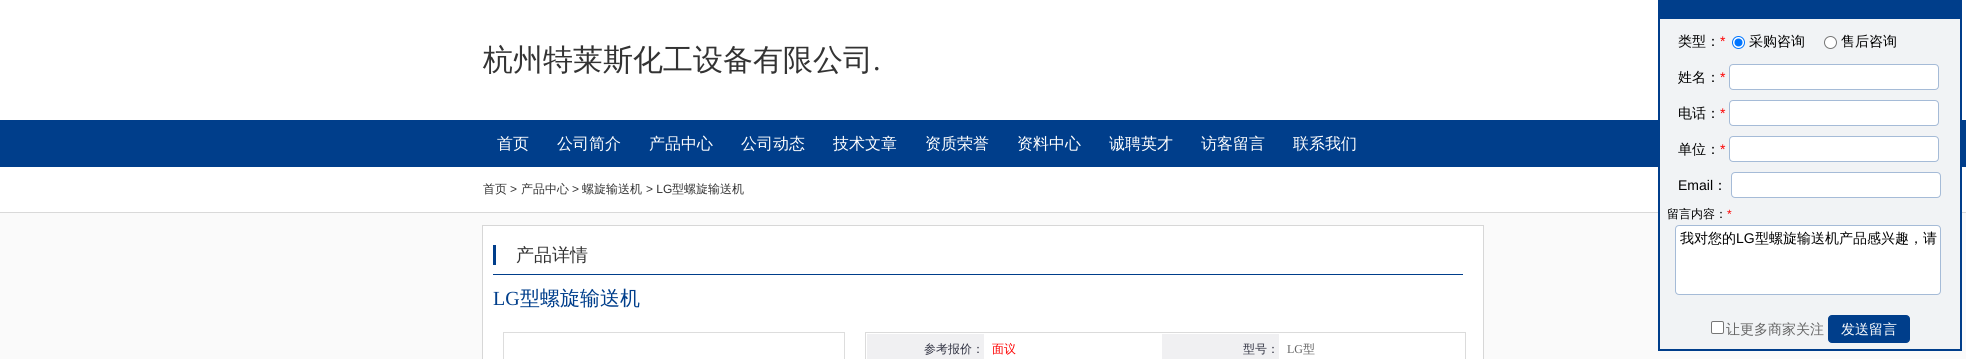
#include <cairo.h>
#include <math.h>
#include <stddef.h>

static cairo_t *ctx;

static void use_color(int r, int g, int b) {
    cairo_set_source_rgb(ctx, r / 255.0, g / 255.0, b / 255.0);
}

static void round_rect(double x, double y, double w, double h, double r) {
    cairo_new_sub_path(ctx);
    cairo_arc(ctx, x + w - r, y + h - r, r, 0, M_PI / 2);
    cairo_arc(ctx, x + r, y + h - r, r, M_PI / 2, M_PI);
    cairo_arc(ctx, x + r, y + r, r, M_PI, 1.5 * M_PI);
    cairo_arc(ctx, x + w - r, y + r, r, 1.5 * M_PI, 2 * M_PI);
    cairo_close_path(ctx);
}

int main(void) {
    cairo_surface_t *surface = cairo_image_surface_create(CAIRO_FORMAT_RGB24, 1966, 359);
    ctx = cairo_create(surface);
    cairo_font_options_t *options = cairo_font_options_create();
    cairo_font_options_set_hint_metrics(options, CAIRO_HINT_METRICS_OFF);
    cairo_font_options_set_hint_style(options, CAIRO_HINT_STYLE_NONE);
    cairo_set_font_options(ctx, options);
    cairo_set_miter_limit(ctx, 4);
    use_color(255, 255, 255);
    cairo_paint(ctx);
    cairo_select_font_face(ctx, "WenQuanYi Zen Hei Medium", CAIRO_FONT_SLANT_NORMAL, CAIRO_FONT_WEIGHT_NORMAL);
    cairo_set_font_size(ctx, 30);
    use_color(51, 51, 51);
    cairo_move_to(ctx, 483, 70);
    cairo_show_text(ctx, "杭州特莱斯化工设备有限公司");
    cairo_select_font_face(ctx, "Liberation Serif", CAIRO_FONT_SLANT_NORMAL, CAIRO_FONT_WEIGHT_NORMAL);
    cairo_move_to(ctx, 873, 70);
    cairo_show_text(ctx, ".");
    use_color(0, 62, 139);
    cairo_rectangle(ctx, 0, 120, 1966, 47);
    cairo_fill(ctx);
    use_color(217, 217, 217);
    cairo_rectangle(ctx, 0, 212, 1966, 1);
    cairo_fill(ctx);
    use_color(250, 250, 250);
    cairo_rectangle(ctx, 0, 213, 1966, 146);
    cairo_fill(ctx);
    use_color(0, 62, 139);
    cairo_rectangle(ctx, 1658, 0, 304, 351);
    cairo_fill(ctx);
    use_color(241, 243, 245);
    cairo_rectangle(ctx, 1660, 19, 300, 330);
    cairo_fill(ctx);
    cairo_select_font_face(ctx, "WenQuanYi Zen Hei Medium", CAIRO_FONT_SLANT_NORMAL, CAIRO_FONT_WEIGHT_NORMAL);
    cairo_set_font_size(ctx, 14);
    use_color(0, 0, 0);
    cairo_move_to(ctx, 1678, 46);
    cairo_show_text(ctx, "类型：");
    cairo_select_font_face(ctx, "Liberation Sans", CAIRO_FONT_SLANT_NORMAL, CAIRO_FONT_WEIGHT_NORMAL);
    use_color(254, 0, 0);
    cairo_move_to(ctx, 1720, 46);
    cairo_show_text(ctx, "*");
    use_color(255, 255, 255);
    cairo_new_path(ctx);
    cairo_arc(ctx, 1738.5, 42.5, 6, 0, 2 * M_PI);
    cairo_fill_preserve(ctx);
    use_color(0, 117, 255);
    cairo_set_line_width(ctx, 1);
    cairo_stroke(ctx);
    cairo_arc(ctx, 1738.5, 42.5, 4, 0, 2 * M_PI);
    cairo_fill(ctx);
    cairo_select_font_face(ctx, "WenQuanYi Zen Hei Medium", CAIRO_FONT_SLANT_NORMAL, CAIRO_FONT_WEIGHT_NORMAL);
    use_color(0, 0, 0);
    cairo_move_to(ctx, 1749, 46);
    cairo_show_text(ctx, "采购咨询");
    use_color(255, 255, 255);
    cairo_new_path(ctx);
    cairo_arc(ctx, 1830.5, 42.5, 6, 0, 2 * M_PI);
    cairo_fill_preserve(ctx);
    use_color(118, 118, 118);
    cairo_stroke(ctx);
    use_color(0, 0, 0);
    cairo_move_to(ctx, 1841, 46);
    cairo_show_text(ctx, "售后咨询");
    cairo_move_to(ctx, 1678, 82);
    cairo_show_text(ctx, "姓名：");
    cairo_select_font_face(ctx, "Liberation Sans", CAIRO_FONT_SLANT_NORMAL, CAIRO_FONT_WEIGHT_NORMAL);
    use_color(254, 0, 0);
    cairo_move_to(ctx, 1720, 82);
    cairo_show_text(ctx, "*");
    use_color(255, 255, 255);
    round_rect(1729.5, 64.5, 209, 25, 3.5);
    cairo_fill_preserve(ctx);
    use_color(165, 187, 215);
    cairo_stroke(ctx);
    cairo_select_font_face(ctx, "WenQuanYi Zen Hei Medium", CAIRO_FONT_SLANT_NORMAL, CAIRO_FONT_WEIGHT_NORMAL);
    use_color(0, 0, 0);
    cairo_move_to(ctx, 1678, 118);
    cairo_show_text(ctx, "电话：");
    cairo_select_font_face(ctx, "Liberation Sans", CAIRO_FONT_SLANT_NORMAL, CAIRO_FONT_WEIGHT_NORMAL);
    use_color(254, 0, 0);
    cairo_move_to(ctx, 1720, 118);
    cairo_show_text(ctx, "*");
    use_color(255, 255, 255);
    round_rect(1729.5, 100.5, 209, 25, 3.5);
    cairo_fill_preserve(ctx);
    use_color(165, 187, 215);
    cairo_stroke(ctx);
    cairo_select_font_face(ctx, "WenQuanYi Zen Hei Medium", CAIRO_FONT_SLANT_NORMAL, CAIRO_FONT_WEIGHT_NORMAL);
    use_color(0, 0, 0);
    cairo_move_to(ctx, 1678, 154);
    cairo_show_text(ctx, "单位：");
    cairo_select_font_face(ctx, "Liberation Sans", CAIRO_FONT_SLANT_NORMAL, CAIRO_FONT_WEIGHT_NORMAL);
    use_color(254, 0, 0);
    cairo_move_to(ctx, 1720, 154);
    cairo_show_text(ctx, "*");
    use_color(255, 255, 255);
    round_rect(1729.5, 136.5, 209, 25, 3.5);
    cairo_fill_preserve(ctx);
    use_color(165, 187, 215);
    cairo_stroke(ctx);
    use_color(0, 0, 0);
    cairo_move_to(ctx, 1678, 190);
    cairo_show_text(ctx, "Email");
    cairo_select_font_face(ctx, "WenQuanYi Zen Hei Medium", CAIRO_FONT_SLANT_NORMAL, CAIRO_FONT_WEIGHT_NORMAL);
    cairo_move_to(ctx, 1713, 190);
    cairo_show_text(ctx, "：");
    use_color(255, 255, 255);
    round_rect(1731.5, 172.5, 209, 25, 3.5);
    cairo_fill_preserve(ctx);
    use_color(165, 187, 215);
    cairo_stroke(ctx);
    cairo_set_font_size(ctx, 12);
    use_color(0, 0, 0);
    cairo_move_to(ctx, 1667, 218);
    cairo_show_text(ctx, "留言内容：");
    cairo_select_font_face(ctx, "Liberation Sans", CAIRO_FONT_SLANT_NORMAL, CAIRO_FONT_WEIGHT_NORMAL);
    use_color(254, 0, 0);
    cairo_move_to(ctx, 1727, 218);
    cairo_show_text(ctx, "*");
    use_color(255, 255, 255);
    round_rect(1675.5, 225.5, 265, 69, 3.5);
    cairo_fill_preserve(ctx);
    use_color(165, 187, 215);
    cairo_stroke(ctx);
    cairo_select_font_face(ctx, "WenQuanYi Zen Hei Medium", CAIRO_FONT_SLANT_NORMAL, CAIRO_FONT_WEIGHT_NORMAL);
    cairo_set_font_size(ctx, 14);
    use_color(0, 0, 0);
    cairo_move_to(ctx, 1680, 243);
    cairo_show_text(ctx, "我对您的");
    cairo_select_font_face(ctx, "Liberation Sans", CAIRO_FONT_SLANT_NORMAL, CAIRO_FONT_WEIGHT_NORMAL);
    cairo_move_to(ctx, 1736, 243);
    cairo_show_text(ctx, "LG");
    cairo_select_font_face(ctx, "WenQuanYi Zen Hei Medium", CAIRO_FONT_SLANT_NORMAL, CAIRO_FONT_WEIGHT_NORMAL);
    cairo_move_to(ctx, 1755, 243);
    cairo_show_text(ctx, "型螺旋输送机产品感兴趣，请");
    use_color(255, 255, 255);
    round_rect(1711.5, 321.5, 12, 12, 1.5);
    cairo_fill_preserve(ctx);
    use_color(118, 118, 118);
    cairo_stroke(ctx);
    use_color(102, 102, 102);
    cairo_move_to(ctx, 1726, 334);
    cairo_show_text(ctx, "让更多商家关注");
    use_color(0, 62, 139);
    round_rect(1828.5, 315.5, 81, 27, 3.5);
    cairo_fill_preserve(ctx);
    cairo_stroke(ctx);
    use_color(255, 255, 255);
    cairo_move_to(ctx, 1841, 334);
    cairo_show_text(ctx, "发送留言");
    cairo_set_font_size(ctx, 16);
    cairo_move_to(ctx, 497, 149);
    cairo_show_text(ctx, "首页");
    cairo_move_to(ctx, 557, 149);
    cairo_show_text(ctx, "公司简介");
    cairo_move_to(ctx, 649, 149);
    cairo_show_text(ctx, "产品中心");
    cairo_move_to(ctx, 741, 149);
    cairo_show_text(ctx, "公司动态");
    cairo_move_to(ctx, 833, 149);
    cairo_show_text(ctx, "技术文章");
    cairo_move_to(ctx, 925, 149);
    cairo_show_text(ctx, "资质荣誉");
    cairo_move_to(ctx, 1017, 149);
    cairo_show_text(ctx, "资料中心");
    cairo_move_to(ctx, 1109, 149);
    cairo_show_text(ctx, "诚聘英才");
    cairo_move_to(ctx, 1201, 149);
    cairo_show_text(ctx, "访客留言");
    cairo_move_to(ctx, 1293, 149);
    cairo_show_text(ctx, "联系我们");
    cairo_set_font_size(ctx, 12);
    use_color(51, 51, 51);
    cairo_move_to(ctx, 483, 193);
    cairo_show_text(ctx, "首页");
    cairo_select_font_face(ctx, "Liberation Sans", CAIRO_FONT_SLANT_NORMAL, CAIRO_FONT_WEIGHT_NORMAL);
    cairo_move_to(ctx, 510, 193);
    cairo_show_text(ctx, ">");
    cairo_select_font_face(ctx, "WenQuanYi Zen Hei Medium", CAIRO_FONT_SLANT_NORMAL, CAIRO_FONT_WEIGHT_NORMAL);
    cairo_move_to(ctx, 521, 193);
    cairo_show_text(ctx, "产品中心");
    cairo_select_font_face(ctx, "Liberation Sans", CAIRO_FONT_SLANT_NORMAL, CAIRO_FONT_WEIGHT_NORMAL);
    cairo_move_to(ctx, 572, 193);
    cairo_show_text(ctx, ">");
    cairo_select_font_face(ctx, "WenQuanYi Zen Hei Medium", CAIRO_FONT_SLANT_NORMAL, CAIRO_FONT_WEIGHT_NORMAL);
    cairo_move_to(ctx, 582, 193);
    cairo_show_text(ctx, "螺旋输送机");
    cairo_select_font_face(ctx, "Liberation Sans", CAIRO_FONT_SLANT_NORMAL, CAIRO_FONT_WEIGHT_NORMAL);
    cairo_move_to(ctx, 646, 193);
    cairo_show_text(ctx, "> LG");
    cairo_select_font_face(ctx, "WenQuanYi Zen Hei Medium", CAIRO_FONT_SLANT_NORMAL, CAIRO_FONT_WEIGHT_NORMAL);
    cairo_move_to(ctx, 672, 193);
    cairo_show_text(ctx, "型螺旋输送机");
    use_color(255, 255, 255);
    cairo_rectangle(ctx, 482.5, 225.5, 1001, 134);
    cairo_fill_preserve(ctx);
    use_color(215, 215, 215);
    cairo_stroke(ctx);
    use_color(1, 63, 140);
    cairo_rectangle(ctx, 493, 263, 3, 2);
    cairo_fill(ctx);
    use_color(0, 62, 139);
    cairo_rectangle(ctx, 493, 274, 970, 1);
    cairo_fill(ctx);
    cairo_rectangle(ctx, 493, 245, 3, 18);
    cairo_fill(ctx);
    cairo_set_font_size(ctx, 18);
    use_color(51, 51, 51);
    cairo_move_to(ctx, 516, 261);
    cairo_show_text(ctx, "产品详情");
    cairo_select_font_face(ctx, "Liberation Serif", CAIRO_FONT_SLANT_NORMAL, CAIRO_FONT_WEIGHT_NORMAL);
    cairo_set_font_size(ctx, 20);
    use_color(0, 62, 139);
    cairo_move_to(ctx, 493, 305);
    cairo_show_text(ctx, "LG");
    cairo_select_font_face(ctx, "WenQuanYi Zen Hei Medium", CAIRO_FONT_SLANT_NORMAL, CAIRO_FONT_WEIGHT_NORMAL);
    cairo_move_to(ctx, 520, 305);
    cairo_show_text(ctx, "型螺旋输送机");
    cairo_rectangle(ctx, 503.5, 332.5, 341, 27);
    use_color(221, 221, 221);
    cairo_stroke(ctx);
    cairo_rectangle(ctx, 865.5, 332.5, 600, 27);
    use_color(219, 219, 219);
    cairo_stroke(ctx);
    use_color(240, 240, 242);
    cairo_rectangle(ctx, 867, 334, 117, 25);
    cairo_fill(ctx);
    cairo_set_font_size(ctx, 12);
    use_color(50, 52, 67);
    cairo_move_to(ctx, 924, 353);
    cairo_show_text(ctx, "参考报价：");
    use_color(254, 0, 0);
    cairo_move_to(ctx, 992, 353);
    cairo_show_text(ctx, "面议");
    use_color(240, 240, 242);
    cairo_rectangle(ctx, 1162, 334, 117, 25);
    cairo_fill(ctx);
    use_color(50, 52, 67);
    cairo_move_to(ctx, 1243, 353);
    cairo_show_text(ctx, "型号：");
    cairo_select_font_face(ctx, "Liberation Serif", CAIRO_FONT_SLANT_NORMAL, CAIRO_FONT_WEIGHT_NORMAL);
    use_color(102, 102, 102);
    cairo_move_to(ctx, 1287, 353);
    cairo_show_text(ctx, "LG");
    cairo_select_font_face(ctx, "WenQuanYi Zen Hei Medium", CAIRO_FONT_SLANT_NORMAL, CAIRO_FONT_WEIGHT_NORMAL);
    cairo_move_to(ctx, 1303, 353);
    cairo_show_text(ctx, "型");
    cairo_surface_write_to_png(surface, "result.png");
    cairo_font_options_destroy(options);
    cairo_destroy(ctx);
    cairo_surface_destroy(surface);
    return 0;
}
